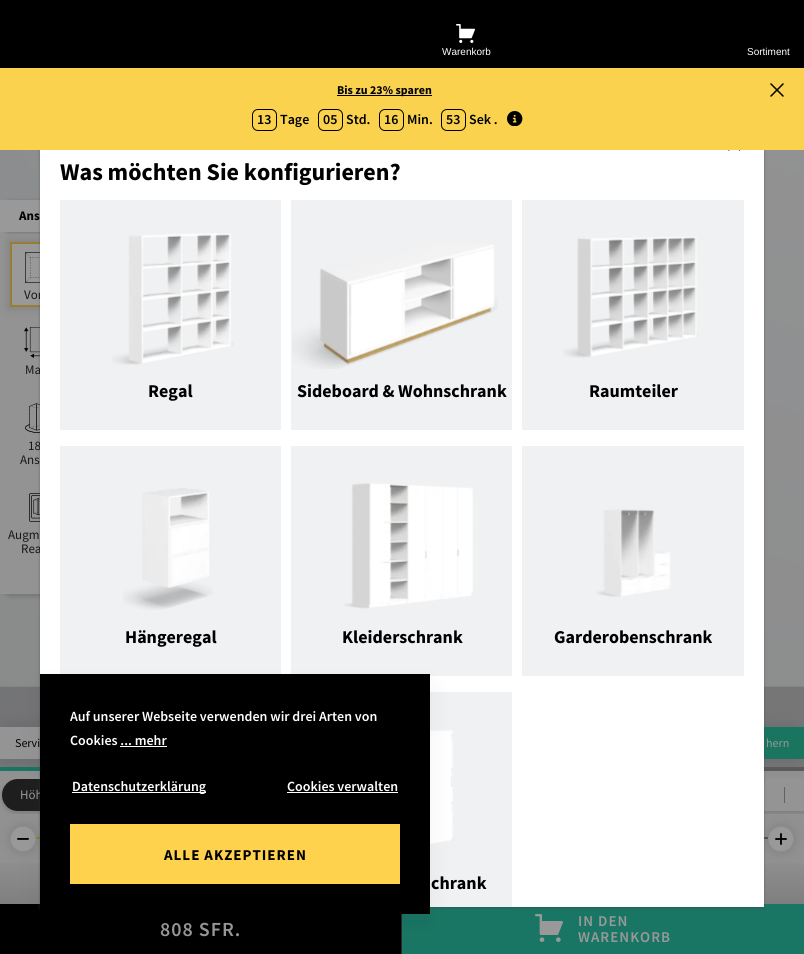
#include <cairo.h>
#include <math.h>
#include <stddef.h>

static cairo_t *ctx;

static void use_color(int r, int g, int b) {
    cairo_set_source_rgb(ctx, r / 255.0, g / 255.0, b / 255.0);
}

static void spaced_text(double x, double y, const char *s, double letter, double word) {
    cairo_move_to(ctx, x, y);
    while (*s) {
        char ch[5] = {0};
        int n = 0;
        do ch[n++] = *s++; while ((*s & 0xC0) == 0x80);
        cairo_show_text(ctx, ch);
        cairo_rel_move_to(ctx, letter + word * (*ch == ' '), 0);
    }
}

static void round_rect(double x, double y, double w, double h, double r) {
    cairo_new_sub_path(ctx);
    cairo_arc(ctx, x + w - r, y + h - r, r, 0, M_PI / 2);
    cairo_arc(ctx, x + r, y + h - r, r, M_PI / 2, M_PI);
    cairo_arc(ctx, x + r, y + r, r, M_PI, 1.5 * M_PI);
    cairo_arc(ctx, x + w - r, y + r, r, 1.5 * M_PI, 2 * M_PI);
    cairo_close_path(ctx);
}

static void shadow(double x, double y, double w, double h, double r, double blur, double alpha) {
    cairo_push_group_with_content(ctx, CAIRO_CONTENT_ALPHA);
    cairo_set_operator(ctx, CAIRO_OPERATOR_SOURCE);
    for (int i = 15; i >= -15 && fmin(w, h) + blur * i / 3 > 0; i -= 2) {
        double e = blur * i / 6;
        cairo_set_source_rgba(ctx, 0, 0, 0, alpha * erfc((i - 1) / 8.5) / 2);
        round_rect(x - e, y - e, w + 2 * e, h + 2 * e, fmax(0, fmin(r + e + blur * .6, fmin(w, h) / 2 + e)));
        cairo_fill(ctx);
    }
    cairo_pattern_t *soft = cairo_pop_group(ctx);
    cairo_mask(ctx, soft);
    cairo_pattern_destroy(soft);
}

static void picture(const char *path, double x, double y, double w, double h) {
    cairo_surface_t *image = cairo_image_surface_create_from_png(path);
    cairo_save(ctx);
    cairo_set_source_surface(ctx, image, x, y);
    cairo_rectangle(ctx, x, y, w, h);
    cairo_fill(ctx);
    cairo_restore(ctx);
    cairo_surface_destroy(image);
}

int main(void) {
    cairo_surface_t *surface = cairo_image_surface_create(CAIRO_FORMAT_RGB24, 804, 954);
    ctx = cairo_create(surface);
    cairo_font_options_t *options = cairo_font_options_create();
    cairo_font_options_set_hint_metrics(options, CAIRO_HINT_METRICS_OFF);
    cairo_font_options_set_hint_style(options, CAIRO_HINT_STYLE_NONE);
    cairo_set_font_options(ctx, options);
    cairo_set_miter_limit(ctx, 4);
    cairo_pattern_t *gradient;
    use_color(255, 255, 255);
    cairo_paint(ctx);
    use_color(0, 0, 0);
    cairo_rectangle(ctx, 0, 0, 804, 68);
    cairo_fill(ctx);
    picture("img1.png", 456, 24, 19, 19);
    cairo_select_font_face(ctx, "Liberation Sans", CAIRO_FONT_SLANT_NORMAL, CAIRO_FONT_WEIGHT_NORMAL);
    cairo_set_font_size(ctx, 10);
    use_color(255, 255, 255);
    cairo_move_to(ctx, 442, 55);
    cairo_show_text(ctx, "Warenkorb");
    cairo_move_to(ctx, 747, 55);
    cairo_show_text(ctx, "Sortiment");
    picture("img3.png", 0, 150, 804, 617);
    use_color(0, 0, 0);
    shadow(2, 202, 80, 394, 9, 2.5, 0.18);
    use_color(147, 147, 147);
    cairo_rectangle(ctx, 0, 232, 40, 362);
    cairo_fill(ctx);
    use_color(0, 0, 0);
    shadow(1, 201, 80, 32, 9, 1.5, 0.18);
    use_color(153, 153, 153);
    cairo_rectangle(ctx, 0, 200, 40, 32);
    cairo_fill(ctx);
    use_color(0, 0, 0);
    shadow(8, 240, 64, 69, 0, 5, 0.12);
    use_color(153, 153, 153);
    cairo_rectangle(ctx, 12, 244, 28, 61);
    cairo_fill(ctx);
    cairo_rectangle(ctx, 11, 243, 58, 63);
    use_color(153, 126, 47);
    cairo_stroke(ctx);
    picture("img12.png", 25, 252, 15, 31);
    picture("img13.png", 24, 327, 16, 31);
    picture("img14.png", 25, 403, 15, 30);
    picture("img15.png", 29, 493, 11, 29);
    use_color(145, 145, 145);
    cairo_rectangle(ctx, 0, 771, 804, 133);
    cairo_fill(ctx);
    use_color(26, 118, 100);
    cairo_rectangle(ctx, 0, 767, 40, 4);
    cairo_fill(ctx);
    cairo_save(ctx);
    cairo_rectangle(ctx, 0, 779, 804, 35);
    cairo_clip(ctx);
    use_color(0, 0, 0);
    shadow(2, 781, 213, 32, 16, 2.5, 0.16);
    cairo_restore(ctx);
    use_color(30, 30, 30);
    cairo_new_path(ctx);
    cairo_move_to(ctx, 18, 779);
    cairo_line_to(ctx, 82, 779);
    cairo_line_to(ctx, 82, 811);
    cairo_line_to(ctx, 18, 811);
    cairo_curve_to(ctx, 9, 811, 2, 804, 2, 795);
    cairo_curve_to(ctx, 2, 786, 9, 779, 18, 779);
    cairo_close_path(ctx);
    cairo_fill(ctx);
    use_color(0, 0, 0);
    shadow(0, 727, 67, 32, 16, 9.5, 0.12);
    use_color(148, 148, 148);
    cairo_rectangle(ctx, 0, 727, 40, 32);
    cairo_fill(ctx);
    use_color(91, 91, 91);
    cairo_rectangle(ctx, 764, 767, 40, 4);
    cairo_fill(ctx);
    cairo_save(ctx);
    cairo_rectangle(ctx, 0, 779, 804, 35);
    cairo_clip(ctx);
    use_color(0, 0, 0);
    shadow(666, 781, 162, 32, 16, 2.5, 0.16);
    cairo_restore(ctx);
    use_color(148, 148, 148);
    cairo_rectangle(ctx, 764, 779, 40, 32);
    cairo_fill(ctx);
    use_color(97, 97, 97);
    cairo_rectangle(ctx, 784, 787, 1, 16);
    cairo_fill(ctx);
    use_color(0, 0, 0);
    shadow(701, 727, 103, 32, 16, 9.5, 0.12);
    use_color(25, 117, 96);
    cairo_rectangle(ctx, 764, 727, 40, 32);
    cairo_fill(ctx);
    use_color(0, 0, 0);
    shadow(10, 826, 26, 26, 13, 6, 0.12);
    use_color(142, 143, 143);
    cairo_arc(ctx, 23, 839, 13, 0, 2 * M_PI);
    cairo_fill(ctx);
    use_color(153, 153, 153);
    cairo_arc(ctx, 23, 839, 12, 0, 2 * M_PI);
    cairo_fill(ctx);
    use_color(153, 126, 47);
    cairo_rectangle(ctx, 36, 837, 4, 2);
    cairo_fill(ctx);
    use_color(0, 0, 0);
    shadow(768, 826, 26, 26, 13, 6, 0.12);
    use_color(83, 83, 83);
    cairo_rectangle(ctx, 764, 837, 4, 2);
    cairo_fill(ctx);
    use_color(142, 143, 143);
    cairo_arc(ctx, 781, 839, 13, 0, 2 * M_PI);
    cairo_fill(ctx);
    use_color(153, 153, 153);
    cairo_arc(ctx, 781, 839, 12, 0, 2 * M_PI);
    cairo_fill(ctx);
    gradient = cairo_pattern_create_linear(402, 854, 402, 954);
    cairo_pattern_add_color_stop_rgba(gradient, 0, 0, 0, 0, 0);
    cairo_pattern_add_color_stop_rgba(gradient, 1, 0, 0, 0, 0.25);
    cairo_set_source(ctx, gradient);
    cairo_pattern_destroy(gradient);
    cairo_rectangle(ctx, 0, 863, 804, 41);
    cairo_fill(ctx);
    use_color(0, 0, 0);
    cairo_rectangle(ctx, 0, 904, 401, 50);
    cairo_fill(ctx);
    use_color(42, 42, 42);
    cairo_rectangle(ctx, 401, 914, 1, 40);
    cairo_fill(ctx);
    use_color(26, 118, 100);
    cairo_rectangle(ctx, 402, 904, 402, 50);
    cairo_fill(ctx);
    picture("img18.png", 535, 914, 28, 28);
    use_color(60, 64, 67);
    shadow(39, 116, 726, 793, 0, 1.5, 0.15);
    shadow(40, 117, 724, 791, 0, 1, 0.3);
    use_color(250, 210, 77);
    cairo_rectangle(ctx, 0, 68, 804, 82);
    cairo_fill(ctx);
    use_color(0, 0, 0);
    cairo_rectangle(ctx, 337, 95, 95, 1);
    cairo_fill(ctx);
    cairo_select_font_face(ctx, "Source Sans Pro", CAIRO_FONT_SLANT_NORMAL, CAIRO_FONT_WEIGHT_BOLD);
    cairo_set_font_size(ctx, 12);
    cairo_move_to(ctx, 337, 94);
    cairo_show_text(ctx, "Bis zu 23% sparen");
    cairo_new_path(ctx);
    cairo_move_to(ctx, 771, 84);
    cairo_line_to(ctx, 783, 96);
    cairo_move_to(ctx, 771, 96);
    cairo_line_to(ctx, 783, 84);
    cairo_set_line_width(ctx, 1.5);
    cairo_set_line_cap(ctx, CAIRO_LINE_CAP_ROUND);
    cairo_set_line_join(ctx, CAIRO_LINE_JOIN_ROUND);
    cairo_stroke(ctx);
    round_rect(252.5, 109.5, 24, 21, 5.5);
    cairo_set_line_width(ctx, 1);
    cairo_set_line_cap(ctx, CAIRO_LINE_CAP_BUTT);
    cairo_set_line_join(ctx, CAIRO_LINE_JOIN_MITER);
    cairo_stroke(ctx);
    cairo_select_font_face(ctx, "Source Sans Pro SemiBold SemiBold", CAIRO_FONT_SLANT_NORMAL, CAIRO_FONT_WEIGHT_NORMAL);
    cairo_set_font_size(ctx, 14);
    cairo_move_to(ctx, 257, 124);
    cairo_show_text(ctx, "13");
    cairo_move_to(ctx, 280, 124);
    cairo_show_text(ctx, "Tage");
    round_rect(318.5, 109.5, 24, 21, 5.5);
    cairo_stroke(ctx);
    cairo_move_to(ctx, 323, 124);
    cairo_show_text(ctx, "05");
    cairo_move_to(ctx, 346, 124);
    cairo_show_text(ctx, "Std.");
    round_rect(379.5, 109.5, 24, 21, 5.5);
    cairo_stroke(ctx);
    cairo_move_to(ctx, 384, 124);
    cairo_show_text(ctx, "16");
    cairo_move_to(ctx, 407, 124);
    cairo_show_text(ctx, "Min.");
    round_rect(441.5, 109.5, 24, 21, 5.5);
    cairo_stroke(ctx);
    cairo_move_to(ctx, 446, 124);
    cairo_show_text(ctx, "53");
    cairo_move_to(ctx, 469, 124);
    cairo_show_text(ctx, "Sek .");
    picture("img2.png", 507, 111, 16, 15);
    cairo_select_font_face(ctx, "Source Sans Pro", CAIRO_FONT_SLANT_NORMAL, CAIRO_FONT_WEIGHT_NORMAL);
    cairo_set_font_size(ctx, 13);
    use_color(20, 22, 25);
    cairo_move_to(ctx, 24, 299);
    cairo_show_text(ctx, "Vor");
    cairo_move_to(ctx, 25, 374);
    cairo_show_text(ctx, "Ma");
    cairo_move_to(ctx, 28, 450);
    cairo_show_text(ctx, "18");
    cairo_move_to(ctx, 21, 553);
    cairo_show_text(ctx, "Rea");
    use_color(153, 153, 153);
    cairo_move_to(ctx, 20, 799);
    cairo_show_text(ctx, "Höh");
    use_color(255, 255, 255);
    cairo_rectangle(ctx, 40, 150, 724, 757);
    cairo_fill(ctx);
    picture("img4.png", 728, 150, 12, 1);
    cairo_select_font_face(ctx, "Source Sans Pro", CAIRO_FONT_SLANT_NORMAL, CAIRO_FONT_WEIGHT_BOLD);
    cairo_set_font_size(ctx, 24);
    use_color(0, 0, 0);
    cairo_move_to(ctx, 60, 180);
    cairo_show_text(ctx, "Was möchten Sie konfigurieren?");
    use_color(240, 241, 242);
    cairo_rectangle(ctx, 60, 200, 221, 230);
    cairo_fill(ctx);
    picture("img5.png", 112, 233, 122, 132);
    cairo_set_font_size(ctx, 18);
    use_color(0, 0, 0);
    cairo_move_to(ctx, 148, 397);
    cairo_show_text(ctx, "Regal");
    use_color(240, 241, 242);
    cairo_rectangle(ctx, 291, 200, 221, 230);
    cairo_fill(ctx);
    picture("img6.png", 292, 244, 206, 125);
    use_color(0, 0, 0);
    cairo_move_to(ctx, 297, 397);
    cairo_show_text(ctx, "Sideboard & Wohnschrank");
    use_color(240, 241, 242);
    cairo_rectangle(ctx, 522, 200, 222, 230);
    cairo_fill(ctx);
    picture("img7.png", 563, 236, 135, 122);
    use_color(0, 0, 0);
    cairo_move_to(ctx, 589, 397);
    cairo_show_text(ctx, "Raumteiler");
    use_color(240, 241, 242);
    cairo_rectangle(ctx, 60, 446, 221, 228);
    cairo_fill(ctx);
    picture("img8.png", 123, 488, 90, 122);
    use_color(0, 0, 0);
    cairo_move_to(ctx, 125, 643);
    cairo_show_text(ctx, "Hängeregal");
    use_color(240, 241, 242);
    cairo_rectangle(ctx, 291, 446, 221, 230);
    cairo_fill(ctx);
    picture("img9.png", 344, 483, 129, 126);
    use_color(0, 0, 0);
    cairo_move_to(ctx, 342, 643);
    cairo_show_text(ctx, "Kleiderschrank");
    use_color(240, 241, 242);
    cairo_rectangle(ctx, 522, 446, 222, 230);
    cairo_fill(ctx);
    picture("img10.png", 596, 509, 75, 88);
    use_color(0, 0, 0);
    cairo_move_to(ctx, 554, 643);
    cairo_show_text(ctx, "Garderobenschrank");
    use_color(240, 241, 242);
    cairo_rectangle(ctx, 430, 692, 82, 215);
    cairo_fill(ctx);
    picture("img11.png", 430, 729, 24, 116);
    use_color(0, 0, 0);
    cairo_move_to(ctx, 431, 889);
    cairo_show_text(ctx, "chrank");
    cairo_set_font_size(ctx, 13);
    cairo_move_to(ctx, 19, 220);
    cairo_show_text(ctx, "Ans");
    cairo_select_font_face(ctx, "Source Sans Pro", CAIRO_FONT_SLANT_NORMAL, CAIRO_FONT_WEIGHT_NORMAL);
    use_color(20, 22, 25);
    cairo_move_to(ctx, 20, 464);
    cairo_show_text(ctx, "Ans");
    cairo_move_to(ctx, 8, 539);
    cairo_show_text(ctx, "Augm");
    cairo_set_font_size(ctx, 12);
    use_color(0, 0, 0);
    cairo_move_to(ctx, 15, 747);
    cairo_show_text(ctx, "Servi");
    use_color(153, 153, 153);
    cairo_move_to(ctx, 766, 747);
    cairo_show_text(ctx, "hern");
    picture("img16.png", 17, 838, 12, 2);
    picture("img17.png", 775, 833, 12, 12);
    cairo_select_font_face(ctx, "Source Sans Pro SemiBold SemiBold", CAIRO_FONT_SLANT_NORMAL, CAIRO_FONT_WEIGHT_NORMAL);
    cairo_set_font_size(ctx, 20);
    spaced_text(160, 936, "808 SFR.", 1, 0);
    cairo_set_font_size(ctx, 15);
    spaced_text(578, 926, "IN DEN", 1, 0);
    spaced_text(578, 942, "WARENKORB", 1, 0);
    use_color(0, 0, 0);
    shadow(40, 686, 390, 240, 0, 12, 0.05);
    use_color(0, 0, 0);
    cairo_rectangle(ctx, 40, 674, 390, 240);
    cairo_fill(ctx);
    cairo_set_font_size(ctx, 14);
    use_color(255, 255, 255);
    cairo_move_to(ctx, 70, 721);
    cairo_show_text(ctx, "Auf unserer Webseite verwenden wir drei Arten von");
    cairo_move_to(ctx, 70, 745);
    cairo_show_text(ctx, "Cookies ... mehr");
    cairo_rectangle(ctx, 120, 746, 47, 1);
    cairo_fill(ctx);
    cairo_rectangle(ctx, 72, 792, 134, 1);
    cairo_fill(ctx);
    cairo_move_to(ctx, 72, 791);
    cairo_show_text(ctx, "Datenschutzerklärung");
    cairo_move_to(ctx, 287, 791);
    cairo_show_text(ctx, "Cookies verwalten");
    cairo_rectangle(ctx, 287, 792, 111, 1);
    cairo_fill(ctx);
    use_color(255, 210, 77);
    cairo_rectangle(ctx, 70, 824, 330, 60);
    cairo_fill(ctx);
    cairo_select_font_face(ctx, "Source Sans Pro", CAIRO_FONT_SLANT_NORMAL, CAIRO_FONT_WEIGHT_BOLD);
    cairo_set_font_size(ctx, 15);
    use_color(0, 0, 0);
    spaced_text(164, 860, "ALLE AKZEPTIEREN", 1, 0);
    cairo_surface_write_to_png(surface, "result.png");
    cairo_font_options_destroy(options);
    cairo_destroy(ctx);
    cairo_surface_destroy(surface);
    return 0;
}
